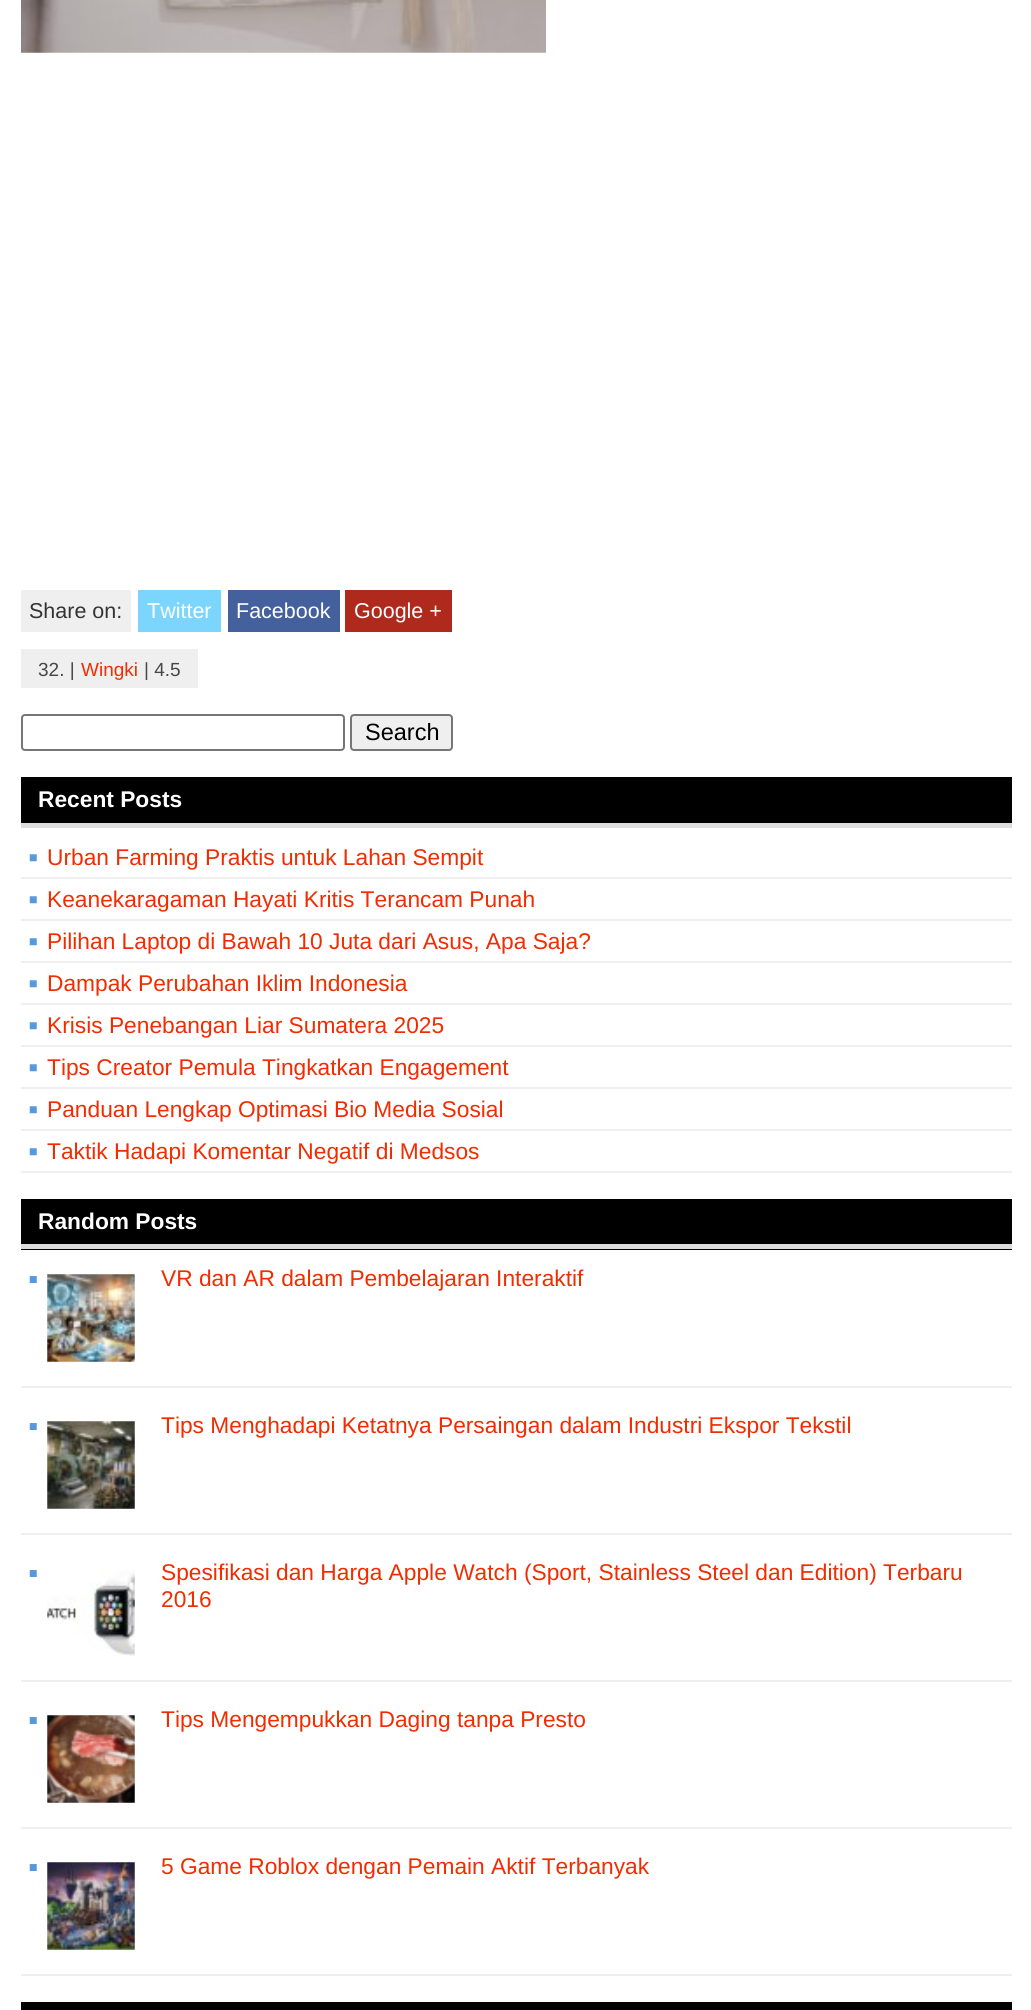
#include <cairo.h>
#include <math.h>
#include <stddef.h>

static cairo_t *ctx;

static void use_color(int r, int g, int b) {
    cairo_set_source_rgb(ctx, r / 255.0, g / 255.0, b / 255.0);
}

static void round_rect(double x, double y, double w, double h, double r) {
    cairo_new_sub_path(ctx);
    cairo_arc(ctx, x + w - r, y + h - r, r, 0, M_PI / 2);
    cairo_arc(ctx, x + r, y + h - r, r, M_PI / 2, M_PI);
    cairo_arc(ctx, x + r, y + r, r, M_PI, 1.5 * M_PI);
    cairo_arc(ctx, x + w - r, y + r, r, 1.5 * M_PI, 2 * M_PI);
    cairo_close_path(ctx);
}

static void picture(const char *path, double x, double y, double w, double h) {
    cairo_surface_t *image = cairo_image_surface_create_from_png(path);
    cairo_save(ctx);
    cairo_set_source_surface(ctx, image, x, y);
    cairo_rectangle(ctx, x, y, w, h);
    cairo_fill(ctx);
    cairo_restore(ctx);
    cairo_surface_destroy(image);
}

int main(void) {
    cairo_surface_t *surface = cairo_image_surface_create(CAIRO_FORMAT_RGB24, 1031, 2010);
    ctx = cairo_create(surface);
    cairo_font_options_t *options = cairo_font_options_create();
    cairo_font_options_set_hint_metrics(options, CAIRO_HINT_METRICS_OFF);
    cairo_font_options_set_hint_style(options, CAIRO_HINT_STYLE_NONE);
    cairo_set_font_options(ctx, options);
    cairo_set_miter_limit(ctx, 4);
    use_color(255, 255, 255);
    cairo_paint(ctx);
    picture("img1.png", 21, 0, 525, 53);
    use_color(239, 239, 239);
    cairo_rectangle(ctx, 21, 590, 110, 42);
    cairo_fill(ctx);
    cairo_select_font_face(ctx, "Liberation Sans", CAIRO_FONT_SLANT_NORMAL, CAIRO_FONT_WEIGHT_NORMAL);
    cairo_set_font_size(ctx, 21.5);
    use_color(51, 51, 51);
    cairo_move_to(ctx, 29, 618);
    cairo_show_text(ctx, "Share on:");
    use_color(124, 213, 253);
    cairo_rectangle(ctx, 138, 590, 83, 42);
    cairo_fill(ctx);
    use_color(255, 255, 255);
    cairo_move_to(ctx, 147, 618);
    cairo_show_text(ctx, "Twitter");
    use_color(69, 97, 157);
    cairo_rectangle(ctx, 228, 590, 112, 42);
    cairo_fill(ctx);
    use_color(255, 255, 255);
    cairo_move_to(ctx, 236, 618);
    cairo_show_text(ctx, "Facebook");
    use_color(175, 41, 29);
    cairo_rectangle(ctx, 345, 590, 107, 42);
    cairo_fill(ctx);
    use_color(255, 255, 255);
    cairo_move_to(ctx, 354, 618);
    cairo_show_text(ctx, "Google +");
    use_color(239, 239, 239);
    cairo_rectangle(ctx, 21, 649, 177, 39);
    cairo_fill(ctx);
    cairo_set_font_size(ctx, 19);
    use_color(71, 71, 71);
    cairo_move_to(ctx, 38, 676);
    cairo_show_text(ctx, "32. |");
    use_color(242, 44, 0);
    cairo_move_to(ctx, 81, 676);
    cairo_show_text(ctx, "Wingki");
    use_color(71, 71, 71);
    cairo_move_to(ctx, 144, 676);
    cairo_show_text(ctx, "| 4.5");
    round_rect(22, 715, 322, 35, 3);
    use_color(118, 118, 118);
    cairo_stroke(ctx);
    use_color(239, 239, 239);
    round_rect(351, 715, 101, 35, 3);
    cairo_fill_preserve(ctx);
    use_color(118, 118, 118);
    cairo_stroke(ctx);
    cairo_set_font_size(ctx, 23.5);
    use_color(0, 0, 0);
    cairo_move_to(ctx, 365, 740);
    cairo_show_text(ctx, "Search");
    cairo_rectangle(ctx, 21, 777, 991, 46);
    cairo_fill(ctx);
    use_color(221, 221, 221);
    cairo_rectangle(ctx, 21, 823, 991, 5);
    cairo_fill(ctx);
    cairo_select_font_face(ctx, "Liberation Sans", CAIRO_FONT_SLANT_NORMAL, CAIRO_FONT_WEIGHT_BOLD);
    cairo_set_font_size(ctx, 22.75);
    use_color(255, 255, 255);
    cairo_move_to(ctx, 38, 807);
    cairo_show_text(ctx, "Recent Posts");
    picture("img2.png", 29, 854, 8, 8);
    use_color(239, 239, 239);
    cairo_rectangle(ctx, 21, 877, 991, 2);
    cairo_fill(ctx);
    cairo_select_font_face(ctx, "Liberation Sans", CAIRO_FONT_SLANT_NORMAL, CAIRO_FONT_WEIGHT_NORMAL);
    use_color(242, 44, 0);
    cairo_move_to(ctx, 47, 865);
    cairo_show_text(ctx, "Urban Farming Praktis untuk Lahan Sempit");
    picture("img2.png", 29, 896, 8, 8);
    use_color(239, 239, 239);
    cairo_rectangle(ctx, 21, 919, 991, 2);
    cairo_fill(ctx);
    use_color(242, 44, 0);
    cairo_move_to(ctx, 47, 907);
    cairo_show_text(ctx, "Keanekaragaman Hayati Kritis Terancam Punah");
    picture("img2.png", 29, 938, 8, 8);
    use_color(239, 239, 239);
    cairo_rectangle(ctx, 21, 961, 991, 2);
    cairo_fill(ctx);
    use_color(242, 44, 0);
    cairo_move_to(ctx, 47, 949);
    cairo_show_text(ctx, "Pilihan Laptop di Bawah 10 Juta dari Asus, Apa Saja?");
    picture("img2.png", 29, 980, 8, 8);
    use_color(239, 239, 239);
    cairo_rectangle(ctx, 21, 1003, 991, 2);
    cairo_fill(ctx);
    use_color(242, 44, 0);
    cairo_move_to(ctx, 47, 991);
    cairo_show_text(ctx, "Dampak Perubahan Iklim Indonesia");
    picture("img2.png", 29, 1022, 8, 8);
    use_color(239, 239, 239);
    cairo_rectangle(ctx, 21, 1045, 991, 2);
    cairo_fill(ctx);
    use_color(242, 44, 0);
    cairo_move_to(ctx, 47, 1033);
    cairo_show_text(ctx, "Krisis Penebangan Liar Sumatera 2025");
    picture("img2.png", 29, 1064, 8, 8);
    use_color(239, 239, 239);
    cairo_rectangle(ctx, 21, 1087, 991, 2);
    cairo_fill(ctx);
    use_color(242, 44, 0);
    cairo_move_to(ctx, 47, 1075);
    cairo_show_text(ctx, "Tips Creator Pemula Tingkatkan Engagement");
    picture("img2.png", 29, 1106, 8, 8);
    use_color(239, 239, 239);
    cairo_rectangle(ctx, 21, 1129, 991, 2);
    cairo_fill(ctx);
    use_color(242, 44, 0);
    cairo_move_to(ctx, 47, 1117);
    cairo_show_text(ctx, "Panduan Lengkap Optimasi Bio Media Sosial");
    picture("img2.png", 29, 1148, 8, 8);
    use_color(239, 239, 239);
    cairo_rectangle(ctx, 21, 1171, 991, 2);
    cairo_fill(ctx);
    use_color(242, 44, 0);
    cairo_move_to(ctx, 47, 1159);
    cairo_show_text(ctx, "Taktik Hadapi Komentar Negatif di Medsos");
    use_color(0, 0, 0);
    cairo_rectangle(ctx, 21, 1199, 991, 51);
    cairo_fill(ctx);
    use_color(221, 221, 221);
    cairo_rectangle(ctx, 21, 1244, 991, 5);
    cairo_fill(ctx);
    cairo_select_font_face(ctx, "Liberation Sans", CAIRO_FONT_SLANT_NORMAL, CAIRO_FONT_WEIGHT_BOLD);
    use_color(255, 255, 255);
    cairo_move_to(ctx, 38, 1229);
    cairo_show_text(ctx, "Random Posts");
    picture("img3.png", 29, 1276, 8, 7);
    use_color(239, 239, 239);
    cairo_rectangle(ctx, 21, 1386, 991, 2);
    cairo_fill(ctx);
    picture("img4.png", 47, 1274, 88, 88);
    cairo_select_font_face(ctx, "Liberation Sans", CAIRO_FONT_SLANT_NORMAL, CAIRO_FONT_WEIGHT_NORMAL);
    use_color(242, 44, 0);
    cairo_move_to(ctx, 161, 1286);
    cairo_show_text(ctx, "VR dan AR dalam Pembelajaran Interaktif");
    picture("img3.png", 29, 1423, 8, 7);
    use_color(239, 239, 239);
    cairo_rectangle(ctx, 21, 1533, 991, 2);
    cairo_fill(ctx);
    picture("img5.png", 47, 1421, 88, 88);
    use_color(242, 44, 0);
    cairo_move_to(ctx, 161, 1433);
    cairo_show_text(ctx, "Tips Menghadapi Ketatnya Persaingan dalam Industri Ekspor Tekstil");
    picture("img3.png", 29, 1570, 8, 7);
    use_color(239, 239, 239);
    cairo_rectangle(ctx, 21, 1680, 991, 2);
    cairo_fill(ctx);
    picture("img6.png", 47, 1569, 88, 87);
    use_color(242, 44, 0);
    cairo_move_to(ctx, 161, 1580);
    cairo_show_text(ctx, "Spesifikasi dan Harga Apple Watch (Sport, Stainless Steel dan Edition) Terbaru");
    cairo_move_to(ctx, 161, 1607);
    cairo_show_text(ctx, "2016");
    picture("img3.png", 29, 1717, 8, 7);
    use_color(239, 239, 239);
    cairo_rectangle(ctx, 21, 1827, 991, 2);
    cairo_fill(ctx);
    picture("img7.png", 47, 1715, 88, 88);
    use_color(242, 44, 0);
    cairo_move_to(ctx, 161, 1727);
    cairo_show_text(ctx, "Tips Mengempukkan Daging tanpa Presto");
    picture("img3.png", 29, 1864, 8, 7);
    use_color(239, 239, 239);
    cairo_rectangle(ctx, 21, 1974, 991, 2);
    cairo_fill(ctx);
    picture("img8.png", 47, 1862, 88, 88);
    use_color(242, 44, 0);
    cairo_move_to(ctx, 161, 1874);
    cairo_show_text(ctx, "5 Game Roblox dengan Pemain Aktif Terbanyak");
    use_color(0, 0, 0);
    cairo_rectangle(ctx, 21, 2002, 991, 8);
    cairo_fill(ctx);
    cairo_surface_write_to_png(surface, "result.png");
    cairo_font_options_destroy(options);
    cairo_destroy(ctx);
    cairo_surface_destroy(surface);
    return 0;
}
